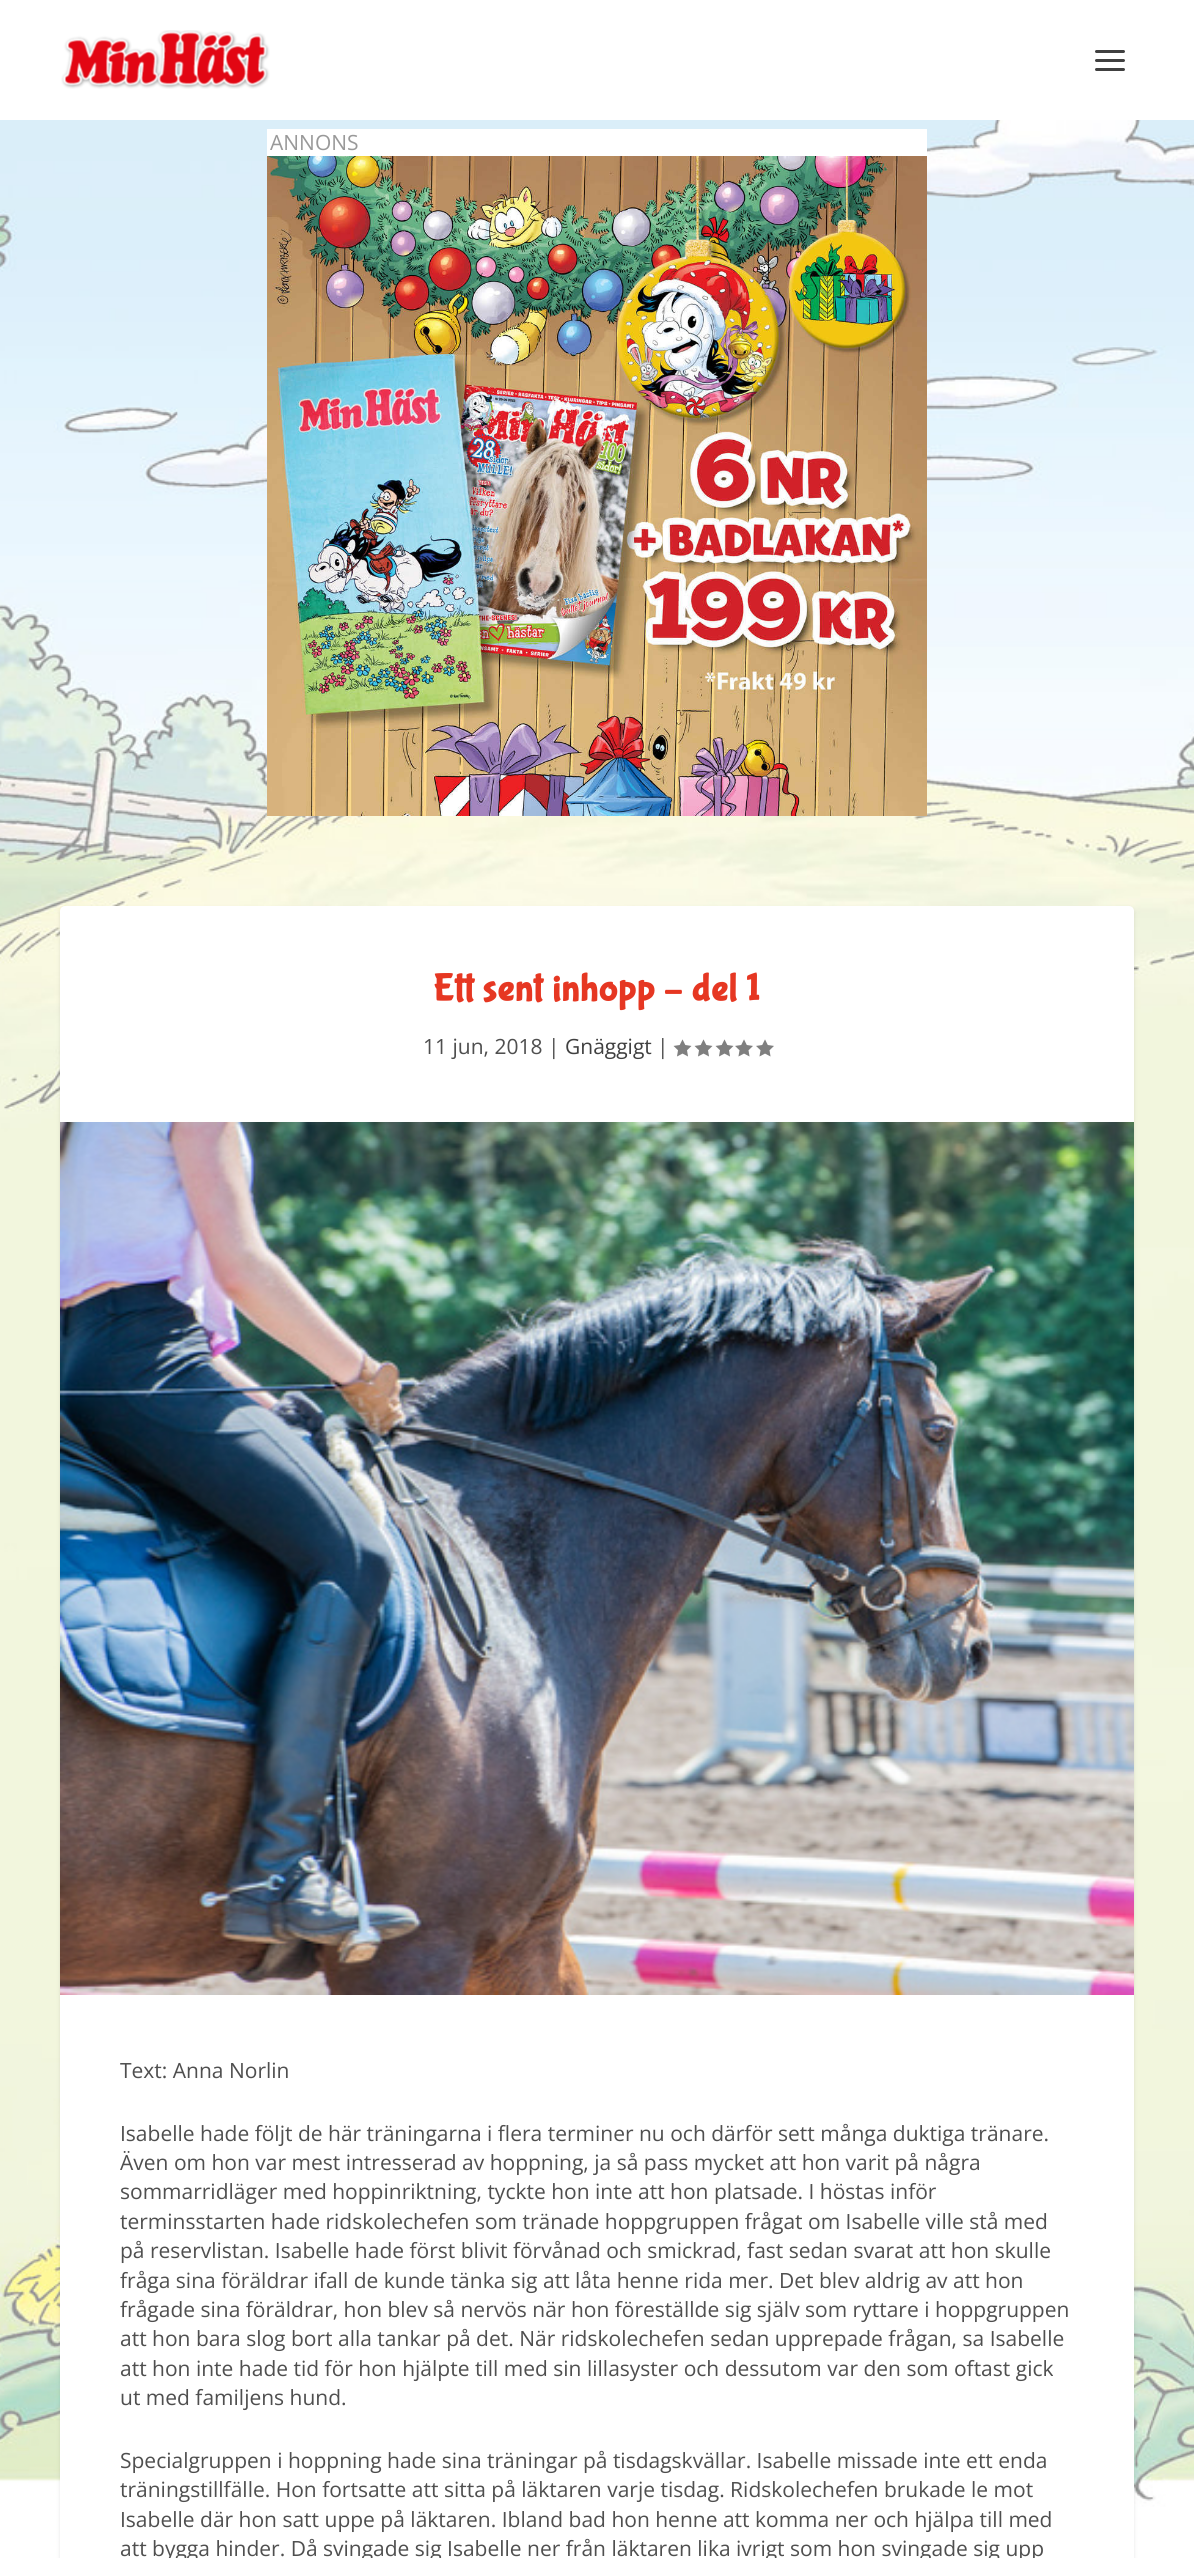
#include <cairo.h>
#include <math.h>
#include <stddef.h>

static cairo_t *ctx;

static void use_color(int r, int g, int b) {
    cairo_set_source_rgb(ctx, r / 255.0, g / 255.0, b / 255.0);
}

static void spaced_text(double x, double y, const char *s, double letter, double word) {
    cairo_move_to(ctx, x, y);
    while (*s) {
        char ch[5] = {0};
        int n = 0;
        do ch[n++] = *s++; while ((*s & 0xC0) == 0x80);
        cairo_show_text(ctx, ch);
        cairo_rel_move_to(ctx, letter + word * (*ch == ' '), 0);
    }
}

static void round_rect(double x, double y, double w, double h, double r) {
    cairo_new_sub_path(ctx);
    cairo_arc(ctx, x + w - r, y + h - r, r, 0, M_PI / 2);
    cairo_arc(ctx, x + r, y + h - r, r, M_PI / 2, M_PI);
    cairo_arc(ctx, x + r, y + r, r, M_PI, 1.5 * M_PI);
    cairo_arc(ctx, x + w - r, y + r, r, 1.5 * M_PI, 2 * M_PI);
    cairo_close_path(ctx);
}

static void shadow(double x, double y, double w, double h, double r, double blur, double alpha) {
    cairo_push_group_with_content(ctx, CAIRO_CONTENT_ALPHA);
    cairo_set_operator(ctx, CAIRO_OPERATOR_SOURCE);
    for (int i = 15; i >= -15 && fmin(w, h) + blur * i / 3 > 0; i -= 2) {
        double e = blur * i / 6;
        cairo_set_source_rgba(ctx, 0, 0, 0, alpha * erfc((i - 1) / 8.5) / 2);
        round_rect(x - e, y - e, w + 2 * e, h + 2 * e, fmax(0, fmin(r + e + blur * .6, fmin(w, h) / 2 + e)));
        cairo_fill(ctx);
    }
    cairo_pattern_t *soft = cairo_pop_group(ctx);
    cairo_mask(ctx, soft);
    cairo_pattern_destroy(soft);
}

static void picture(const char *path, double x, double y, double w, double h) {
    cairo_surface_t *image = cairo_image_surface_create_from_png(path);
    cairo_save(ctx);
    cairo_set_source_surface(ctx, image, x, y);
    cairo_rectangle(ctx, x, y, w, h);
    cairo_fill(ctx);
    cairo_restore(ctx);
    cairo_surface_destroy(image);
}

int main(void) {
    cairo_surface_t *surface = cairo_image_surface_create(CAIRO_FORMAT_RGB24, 1194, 2558);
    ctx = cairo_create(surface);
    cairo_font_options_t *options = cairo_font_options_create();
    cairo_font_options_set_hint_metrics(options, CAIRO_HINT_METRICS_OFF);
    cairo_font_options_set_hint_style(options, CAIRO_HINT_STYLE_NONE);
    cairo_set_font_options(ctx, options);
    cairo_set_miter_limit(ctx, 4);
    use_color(255, 255, 255);
    cairo_paint(ctx);
    picture("img1.png", 0, 120, 1194, 2438);
    picture("img2.png", 61, 30, 209, 59);
    use_color(64, 64, 64);
    round_rect(1095, 50, 30, 3, 1.5);
    cairo_fill(ctx);
    round_rect(1095, 59, 30, 3, 1.5);
    cairo_fill(ctx);
    round_rect(1095, 68, 30, 3, 1.5);
    cairo_fill(ctx);
    use_color(255, 255, 255);
    cairo_rectangle(ctx, 267, 129, 660, 27);
    cairo_fill(ctx);
    cairo_select_font_face(ctx, "Open Sans", CAIRO_FONT_SLANT_NORMAL, CAIRO_FONT_WEIGHT_NORMAL);
    cairo_set_font_size(ctx, 21);
    use_color(153, 153, 153);
    cairo_move_to(ctx, 270, 150);
    cairo_show_text(ctx, "ANNONS");
    picture("img3.png", 267, 156, 660, 660);
    use_color(0, 0, 0);
    shadow(60, 908, 1074, 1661, 5, 2, 0.1);
    use_color(255, 255, 255);
    round_rect(60, 906, 1074, 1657, 5);
    cairo_fill(ctx);
    cairo_select_font_face(ctx, "Bubblegum Sans", CAIRO_FONT_SLANT_NORMAL, CAIRO_FONT_WEIGHT_BOLD);
    cairo_set_font_size(ctx, 39);
    use_color(230, 55, 34);
    spaced_text(433, 1000, "Ett sent inhopp – del 1", 0.75, 0);
    cairo_select_font_face(ctx, "Open Sans", CAIRO_FONT_SLANT_NORMAL, CAIRO_FONT_WEIGHT_NORMAL);
    cairo_set_font_size(ctx, 21);
    use_color(79, 79, 79);
    cairo_move_to(ctx, 423, 1054);
    cairo_show_text(ctx, "11 jun, 2018 |");
    use_color(64, 64, 64);
    cairo_move_to(ctx, 565, 1054);
    cairo_show_text(ctx, "Gnäggigt");
    use_color(79, 79, 79);
    cairo_move_to(ctx, 657, 1054);
    cairo_show_text(ctx, "|");
    picture("img4.png", 673, 1039, 19, 18);
    picture("img4.png", 694, 1039, 19, 18);
    picture("img4.png", 715, 1039, 19, 18);
    picture("img5.png", 735, 1039, 18, 18);
    picture("img5.png", 756, 1039, 18, 18);
    picture("img6.png", 60, 1122, 1074, 873);
    cairo_move_to(ctx, 120, 2078);
    cairo_show_text(ctx, "Text: Anna Norlin");
    cairo_move_to(ctx, 120, 2141);
    cairo_show_text(ctx, "Isabelle hade följt de här träningarna i flera terminer nu och därför sett många duktiga tränare.");
    cairo_move_to(ctx, 120, 2170);
    cairo_show_text(ctx, "Även om hon var mest intresserad av hoppning, ja så pass mycket att hon varit på några");
    cairo_move_to(ctx, 120, 2199);
    cairo_show_text(ctx, "sommarridläger med hoppinriktning, tyckte hon inte att hon platsade. I höstas inför");
    cairo_move_to(ctx, 120, 2229);
    cairo_show_text(ctx, "terminsstarten hade ridskolechefen som tränade hoppgruppen frågat om Isabelle ville stå med");
    cairo_move_to(ctx, 120, 2258);
    cairo_show_text(ctx, "på reservlistan. Isabelle hade först blivit förvånad och smickrad, fast sedan svarat att hon skulle");
    cairo_move_to(ctx, 120, 2288);
    cairo_show_text(ctx, "fråga sina föräldrar ifall de kunde tänka sig att låta henne rida mer. Det blev aldrig av att hon");
    cairo_move_to(ctx, 120, 2317);
    cairo_show_text(ctx, "frågade sina föräldrar, hon blev så nervös när hon föreställde sig själv som ryttare i hoppgruppen");
    cairo_move_to(ctx, 120, 2346);
    cairo_show_text(ctx, "att hon bara slog bort alla tankar på det. När ridskolechefen sedan upprepade frågan, sa Isabelle");
    cairo_move_to(ctx, 120, 2376);
    cairo_show_text(ctx, "att hon inte hade tid för hon hjälpte till med sin lillasyster och dessutom var den som oftast gick");
    cairo_move_to(ctx, 120, 2405);
    cairo_show_text(ctx, "ut med familjens hund.");
    cairo_move_to(ctx, 120, 2468);
    cairo_show_text(ctx, "Specialgruppen i hoppning hade sina träningar på tisdagskvällar. Isabelle missade inte ett enda");
    cairo_move_to(ctx, 120, 2497);
    cairo_show_text(ctx, "träningstillfälle. Hon fortsatte att sitta på läktaren varje tisdag. Ridskolechefen brukade le mot");
    cairo_move_to(ctx, 120, 2527);
    cairo_show_text(ctx, "Isabelle där hon satt uppe på läktaren. Ibland bad hon henne att komma ner och hjälpa till med");
    cairo_move_to(ctx, 120, 2556);
    cairo_show_text(ctx, "att bygga hinder. Då svingade sig Isabelle ner från läktaren lika ivrigt som hon svingade sig upp");
    cairo_surface_write_to_png(surface, "result.png");
    cairo_font_options_destroy(options);
    cairo_destroy(ctx);
    cairo_surface_destroy(surface);
    return 0;
}
